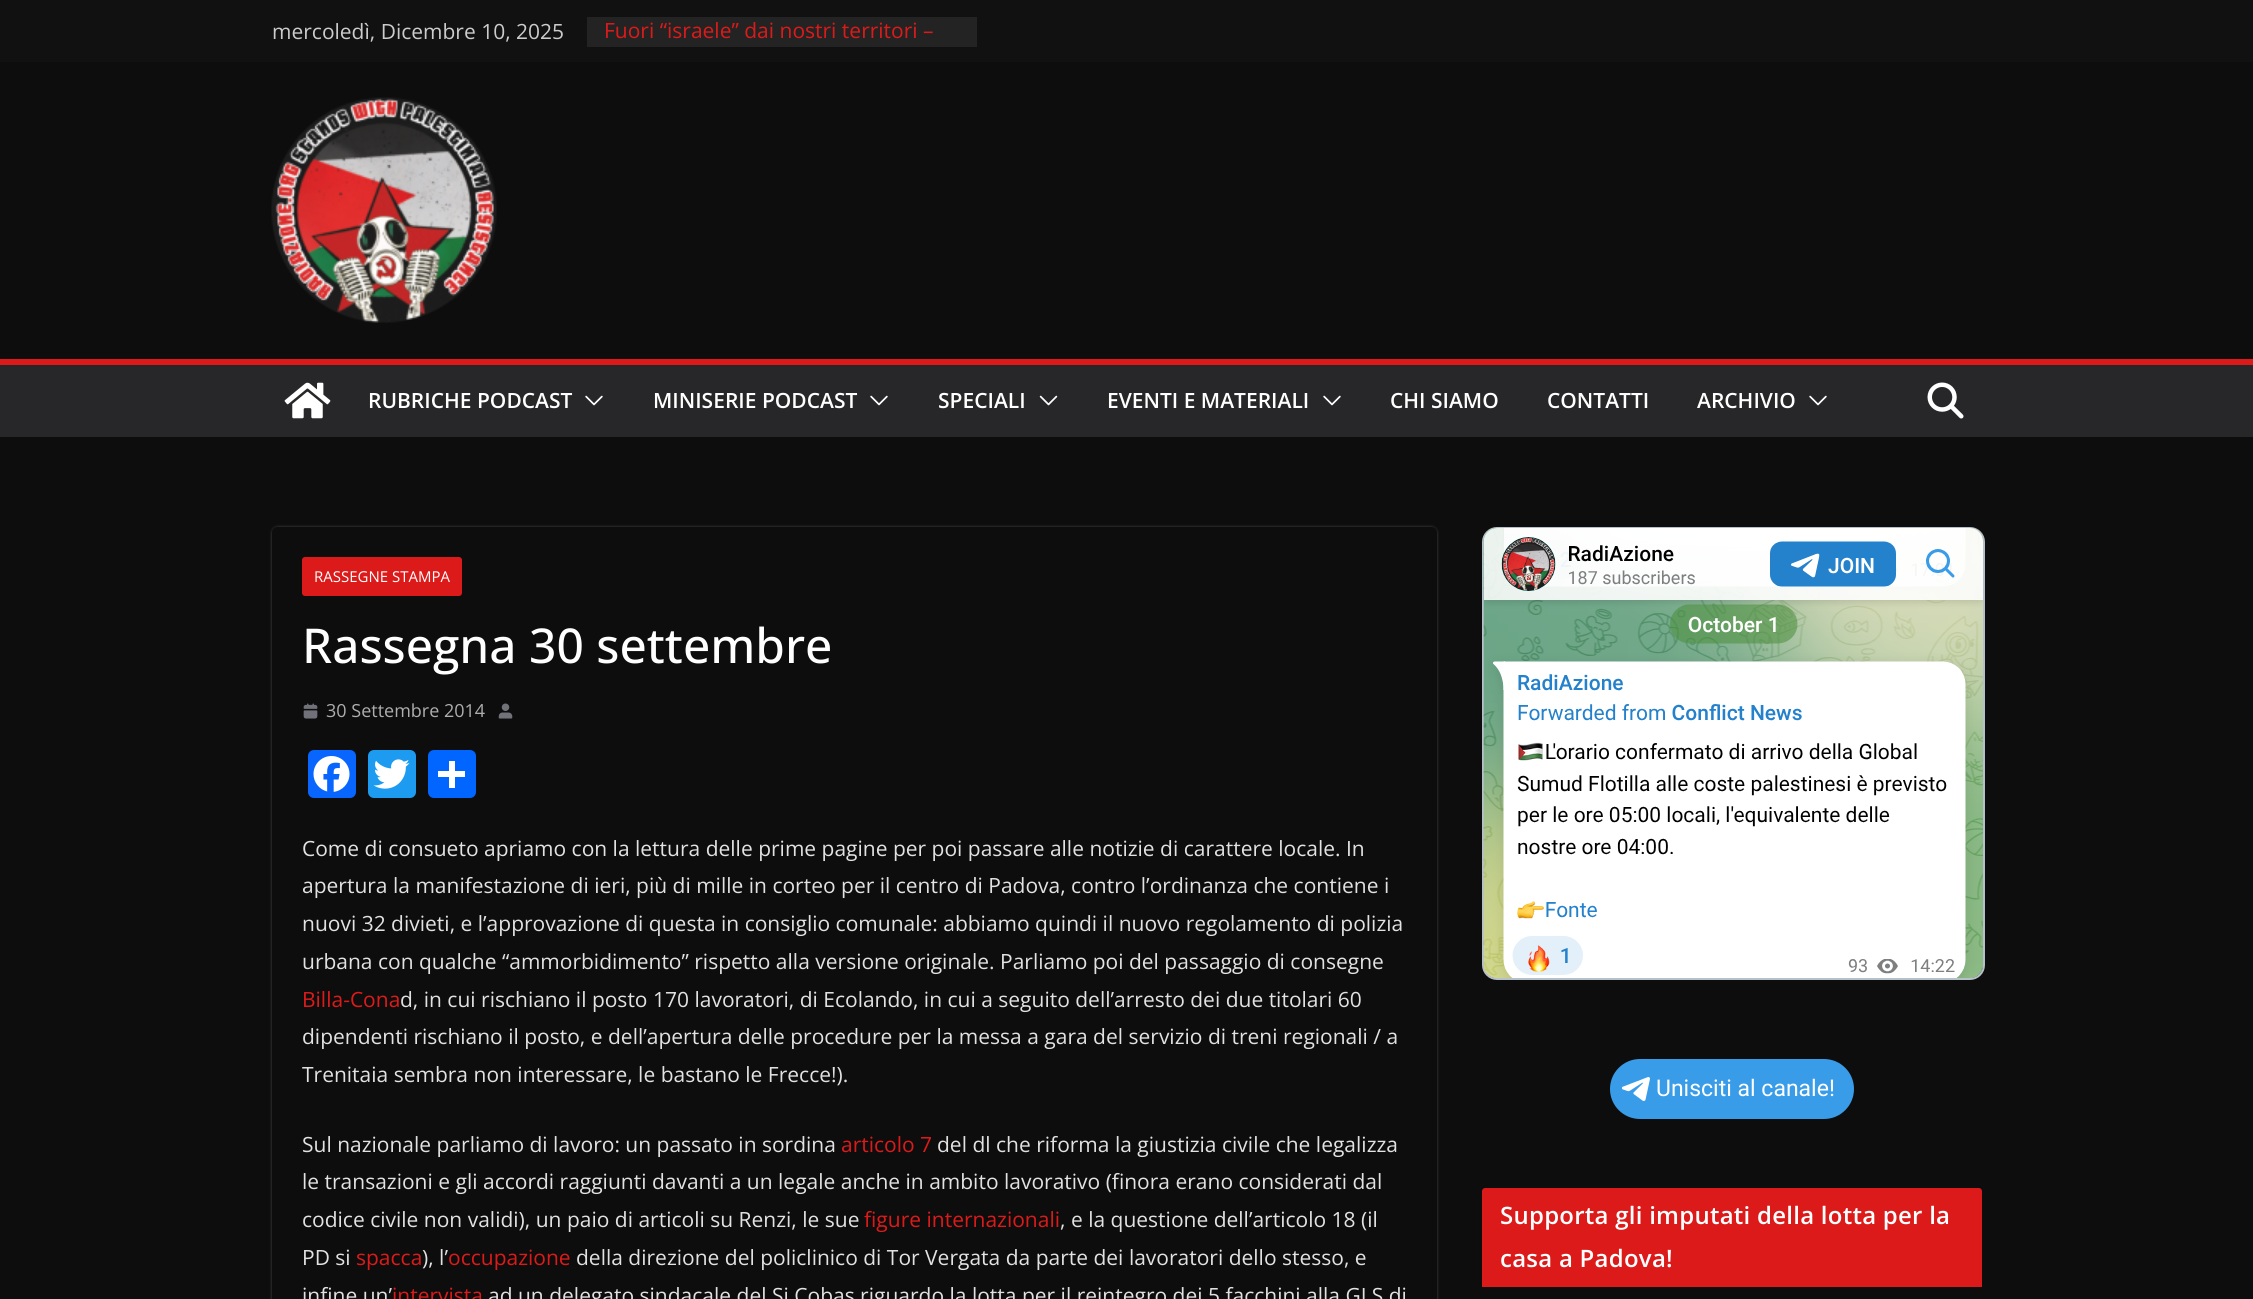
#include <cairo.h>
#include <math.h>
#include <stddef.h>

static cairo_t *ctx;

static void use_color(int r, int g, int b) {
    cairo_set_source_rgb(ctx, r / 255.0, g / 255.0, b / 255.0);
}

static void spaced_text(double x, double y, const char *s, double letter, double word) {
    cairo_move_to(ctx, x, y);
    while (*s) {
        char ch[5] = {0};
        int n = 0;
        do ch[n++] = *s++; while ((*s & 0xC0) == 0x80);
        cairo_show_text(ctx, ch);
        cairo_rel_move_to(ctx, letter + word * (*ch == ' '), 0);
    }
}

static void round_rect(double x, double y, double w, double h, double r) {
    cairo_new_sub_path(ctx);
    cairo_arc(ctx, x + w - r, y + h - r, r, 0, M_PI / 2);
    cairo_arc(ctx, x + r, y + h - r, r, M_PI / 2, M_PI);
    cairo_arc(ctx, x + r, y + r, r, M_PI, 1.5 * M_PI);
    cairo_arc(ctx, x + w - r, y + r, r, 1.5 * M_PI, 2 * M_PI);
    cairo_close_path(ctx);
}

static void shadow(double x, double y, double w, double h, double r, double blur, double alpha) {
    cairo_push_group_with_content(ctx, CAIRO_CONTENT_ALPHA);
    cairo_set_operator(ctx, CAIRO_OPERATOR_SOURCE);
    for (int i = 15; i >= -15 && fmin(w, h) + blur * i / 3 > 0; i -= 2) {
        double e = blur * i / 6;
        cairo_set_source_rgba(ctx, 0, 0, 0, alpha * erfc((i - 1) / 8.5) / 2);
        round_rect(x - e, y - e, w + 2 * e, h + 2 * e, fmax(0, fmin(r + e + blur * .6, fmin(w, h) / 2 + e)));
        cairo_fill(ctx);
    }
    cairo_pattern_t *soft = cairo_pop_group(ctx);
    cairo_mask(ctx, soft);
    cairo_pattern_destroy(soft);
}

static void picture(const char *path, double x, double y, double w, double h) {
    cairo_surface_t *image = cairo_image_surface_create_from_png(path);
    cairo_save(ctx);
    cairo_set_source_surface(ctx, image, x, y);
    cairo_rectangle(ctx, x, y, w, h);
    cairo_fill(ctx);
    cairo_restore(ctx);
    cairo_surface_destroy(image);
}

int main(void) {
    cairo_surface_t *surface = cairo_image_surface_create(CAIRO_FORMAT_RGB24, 2253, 1299);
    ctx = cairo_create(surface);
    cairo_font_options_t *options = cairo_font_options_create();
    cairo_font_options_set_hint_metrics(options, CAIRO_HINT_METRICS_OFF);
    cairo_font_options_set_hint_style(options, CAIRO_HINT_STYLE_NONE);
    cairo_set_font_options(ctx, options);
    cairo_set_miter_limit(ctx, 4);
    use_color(13, 13, 13);
    cairo_paint(ctx);
    use_color(17, 17, 17);
    cairo_rectangle(ctx, 0, 0, 2253, 62);
    cairo_fill(ctx);
    cairo_select_font_face(ctx, "Open Sans", CAIRO_FONT_SLANT_NORMAL, CAIRO_FONT_WEIGHT_NORMAL);
    cairo_set_font_size(ctx, 21);
    use_color(204, 204, 204);
    cairo_move_to(ctx, 272, 39);
    cairo_show_text(ctx, "mercoledì, Dicembre 10, 2025");
    use_color(35, 35, 35);
    cairo_rectangle(ctx, 587, 17, 390, 30);
    cairo_fill(ctx);
    use_color(221, 26, 26);
    cairo_move_to(ctx, 604, 38);
    cairo_show_text(ctx, "Fuori “israele” dai nostri territori –");
    picture("img1.png", 271, 97, 226, 226);
    use_color(39, 39, 42);
    cairo_rectangle(ctx, 0, 365, 2253, 72);
    cairo_fill(ctx);
    use_color(221, 26, 26);
    cairo_rectangle(ctx, 0, 359, 2253, 6);
    cairo_fill(ctx);
    picture("img2.png", 284, 382, 47, 37);
    cairo_select_font_face(ctx, "Open Sans SemiBold", CAIRO_FONT_SLANT_NORMAL, CAIRO_FONT_WEIGHT_NORMAL);
    use_color(255, 255, 255);
    cairo_move_to(ctx, 368, 408);
    cairo_show_text(ctx, "RUBRICHE PODCAST");
    picture("img3.png", 585, 395, 18, 11);
    cairo_move_to(ctx, 653, 408);
    cairo_show_text(ctx, "MINISERIE PODCAST");
    picture("img3.png", 870, 395, 18, 11);
    cairo_move_to(ctx, 938, 408);
    cairo_show_text(ctx, "SPECIALI");
    picture("img4.png", 1039, 395, 19, 11);
    cairo_move_to(ctx, 1107, 408);
    cairo_show_text(ctx, "EVENTI E MATERIALI");
    picture("img3.png", 1323, 395, 18, 11);
    cairo_move_to(ctx, 1390, 408);
    cairo_show_text(ctx, "CHI SIAMO");
    cairo_move_to(ctx, 1547, 408);
    cairo_show_text(ctx, "CONTATTI");
    cairo_move_to(ctx, 1697, 408);
    cairo_show_text(ctx, "ARCHIVIO");
    picture("img3.png", 1809, 395, 18, 11);
    picture("img5.png", 1927, 382, 37, 37);
    cairo_save(ctx);
    cairo_set_fill_rule(ctx, CAIRO_FILL_RULE_EVEN_ODD);
    cairo_new_path(ctx);
    cairo_move_to(ctx, 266, 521);
    cairo_line_to(ctx, 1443, 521);
    cairo_line_to(ctx, 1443, 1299);
    cairo_line_to(ctx, 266, 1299);
    cairo_close_path(ctx);
    cairo_move_to(ctx, 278, 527);
    cairo_line_to(ctx, 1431, 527);
    cairo_curve_to(ctx, 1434.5, 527, 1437, 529.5, 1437, 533);
    cairo_line_to(ctx, 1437, 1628);
    cairo_curve_to(ctx, 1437, 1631.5, 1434.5, 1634, 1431, 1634);
    cairo_line_to(ctx, 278, 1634);
    cairo_curve_to(ctx, 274.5, 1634, 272, 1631.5, 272, 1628);
    cairo_line_to(ctx, 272, 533);
    cairo_curve_to(ctx, 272, 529.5, 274.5, 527, 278, 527);
    cairo_close_path(ctx);
    cairo_clip(ctx);
    use_color(255, 255, 255);
    shadow(272, 527, 1165, 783, 6, 1.5, 0.24);
    cairo_restore(ctx);
    use_color(221, 26, 26);
    round_rect(302, 557, 160, 39, 3);
    cairo_fill(ctx);
    cairo_select_font_face(ctx, "Open Sans", CAIRO_FONT_SLANT_NORMAL, CAIRO_FONT_WEIGHT_NORMAL);
    cairo_set_font_size(ctx, 15);
    use_color(255, 255, 255);
    cairo_move_to(ctx, 314, 582);
    cairo_show_text(ctx, "RASSEGNE STAMPA");
    cairo_select_font_face(ctx, "Open Sans Medium", CAIRO_FONT_SLANT_NORMAL, CAIRO_FONT_WEIGHT_NORMAL);
    cairo_set_font_size(ctx, 48);
    cairo_move_to(ctx, 302, 663);
    cairo_show_text(ctx, "Rassegna 30 settembre");
    picture("img6.png", 303, 703, 15, 16);
    cairo_select_font_face(ctx, "Open Sans", CAIRO_FONT_SLANT_NORMAL, CAIRO_FONT_WEIGHT_NORMAL);
    cairo_set_font_size(ctx, 18);
    use_color(174, 174, 174);
    cairo_move_to(ctx, 326, 717);
    cairo_show_text(ctx, "30 Settembre 2014");
    picture("img7.png", 498, 703, 15, 16);
    use_color(8, 102, 255);
    round_rect(308, 750, 48, 48, 6);
    cairo_fill(ctx);
    picture("img8.png", 313, 756, 37, 36);
    use_color(29, 155, 240);
    round_rect(368, 750, 48, 48, 6);
    cairo_fill(ctx);
    picture("img9.png", 373, 759, 37, 30);
    use_color(1, 102, 255);
    round_rect(428, 750, 48, 48, 6);
    cairo_fill(ctx);
    use_color(255, 255, 255);
    cairo_rectangle(ctx, 449, 761, 6, 27);
    cairo_fill(ctx);
    cairo_rectangle(ctx, 438, 771, 27, 6);
    cairo_fill(ctx);
    cairo_set_font_size(ctx, 21);
    use_color(227, 226, 226);
    cairo_move_to(ctx, 302, 856);
    cairo_show_text(ctx, "Come di consueto apriamo con la lettura delle prime pagine per poi passare alle notizie di carattere locale. In");
    cairo_move_to(ctx, 302, 893);
    cairo_show_text(ctx, "apertura la manifestazione di ieri, più di mille in corteo per il centro di Padova, contro l’ordinanza che contiene i");
    cairo_move_to(ctx, 302, 931);
    cairo_show_text(ctx, "nuovi 32 divieti, e l’approvazione di questa in consiglio comunale: abbiamo quindi il nuovo regolamento di polizia");
    cairo_move_to(ctx, 302, 969);
    cairo_show_text(ctx, "urbana con qualche “ammorbidimento” rispetto alla versione originale. Parliamo poi del passaggio di consegne");
    use_color(221, 26, 26);
    cairo_move_to(ctx, 302, 1007);
    cairo_show_text(ctx, "Billa-Cona");
    use_color(227, 226, 226);
    cairo_move_to(ctx, 400, 1007);
    cairo_show_text(ctx, "d, in cui rischiano il posto 170 lavoratori, di Ecolando, in cui a seguito dell’arresto dei due titolari 60");
    cairo_move_to(ctx, 302, 1044);
    cairo_show_text(ctx, "dipendenti rischiano il posto, e dell’apertura delle procedure per la messa a gara del servizio di treni regionali / a");
    cairo_move_to(ctx, 302, 1082);
    cairo_show_text(ctx, "Trenitaia sembra non interessare, le bastano le Frecce!).");
    cairo_move_to(ctx, 302, 1152);
    cairo_show_text(ctx, "Sul nazionale parliamo di lavoro: un passato in sordina");
    use_color(221, 26, 26);
    cairo_move_to(ctx, 841, 1152);
    cairo_show_text(ctx, "articolo 7");
    use_color(227, 226, 226);
    cairo_move_to(ctx, 937, 1152);
    cairo_show_text(ctx, "del dl che riforma la giustizia civile che legalizza");
    cairo_move_to(ctx, 302, 1189);
    cairo_show_text(ctx, "le transazioni e gli accordi raggiunti davanti a un legale anche in ambito lavorativo (finora erano considerati dal");
    cairo_move_to(ctx, 302, 1227);
    cairo_show_text(ctx, "codice civile non validi), un paio di articoli su Renzi, le sue");
    use_color(221, 26, 26);
    cairo_move_to(ctx, 864, 1227);
    cairo_show_text(ctx, "figure internazionali");
    use_color(227, 226, 226);
    cairo_move_to(ctx, 1060, 1227);
    cairo_show_text(ctx, ", e la questione dell’articolo 18 (il");
    cairo_move_to(ctx, 302, 1265);
    cairo_show_text(ctx, "PD si");
    use_color(221, 26, 26);
    cairo_move_to(ctx, 356, 1265);
    cairo_show_text(ctx, "spacca");
    use_color(227, 226, 226);
    cairo_move_to(ctx, 422, 1265);
    cairo_show_text(ctx, "), l’");
    use_color(221, 26, 26);
    cairo_move_to(ctx, 448, 1265);
    cairo_show_text(ctx, "occupazione");
    use_color(227, 226, 226);
    cairo_move_to(ctx, 576, 1265);
    cairo_show_text(ctx, "della direzione del policlinico di Tor Vergata da parte dei lavoratori dello stesso, e");
    cairo_move_to(ctx, 302, 1303);
    cairo_show_text(ctx, "infine un’");
    use_color(221, 26, 26);
    cairo_move_to(ctx, 392, 1303);
    cairo_show_text(ctx, "intervista");
    use_color(227, 226, 226);
    cairo_move_to(ctx, 488, 1303);
    cairo_show_text(ctx, "ad un delegato sindacale del Si.Cobas riguardo la lotta per il reintegro dei 5 facchini alla GLS di");
    round_rect(1483, 528, 501, 451, 14);
    use_color(181, 192, 200);
    cairo_stroke(ctx);
    picture("img10.png", 1483, 528, 500, 450);
    use_color(56, 156, 233);
    round_rect(1610, 1059, 244, 60, 30);
    cairo_fill(ctx);
    picture("img11.png", 1622, 1077, 28, 24);
    cairo_select_font_face(ctx, "Roboto", CAIRO_FONT_SLANT_NORMAL, CAIRO_FONT_WEIGHT_NORMAL);
    cairo_set_font_size(ctx, 23);
    use_color(255, 255, 255);
    cairo_move_to(ctx, 1656, 1096);
    cairo_show_text(ctx, "Unisciti al canale!");
    use_color(221, 26, 26);
    cairo_rectangle(ctx, 1482, 1284, 500, 3);
    cairo_fill(ctx);
    cairo_new_path(ctx);
    cairo_move_to(ctx, 1485, 1188);
    cairo_line_to(ctx, 1979, 1188);
    cairo_curve_to(ctx, 1980.5, 1188, 1982, 1189.5, 1982, 1191);
    cairo_line_to(ctx, 1982, 1284);
    cairo_line_to(ctx, 1482, 1284);
    cairo_line_to(ctx, 1482, 1191);
    cairo_curve_to(ctx, 1482, 1189.5, 1483.5, 1188, 1485, 1188);
    cairo_close_path(ctx);
    cairo_fill(ctx);
    cairo_select_font_face(ctx, "Open Sans SemiBold", CAIRO_FONT_SLANT_NORMAL, CAIRO_FONT_WEIGHT_NORMAL);
    cairo_set_font_size(ctx, 24);
    use_color(255, 255, 255);
    spaced_text(1500, 1224, "Supporta gli imputati della lotta per la", 0.25, 0);
    spaced_text(1500, 1267, "casa a Padova!", 0.25, 0);
    cairo_surface_write_to_png(surface, "result.png");
    cairo_font_options_destroy(options);
    cairo_destroy(ctx);
    cairo_surface_destroy(surface);
    return 0;
}
